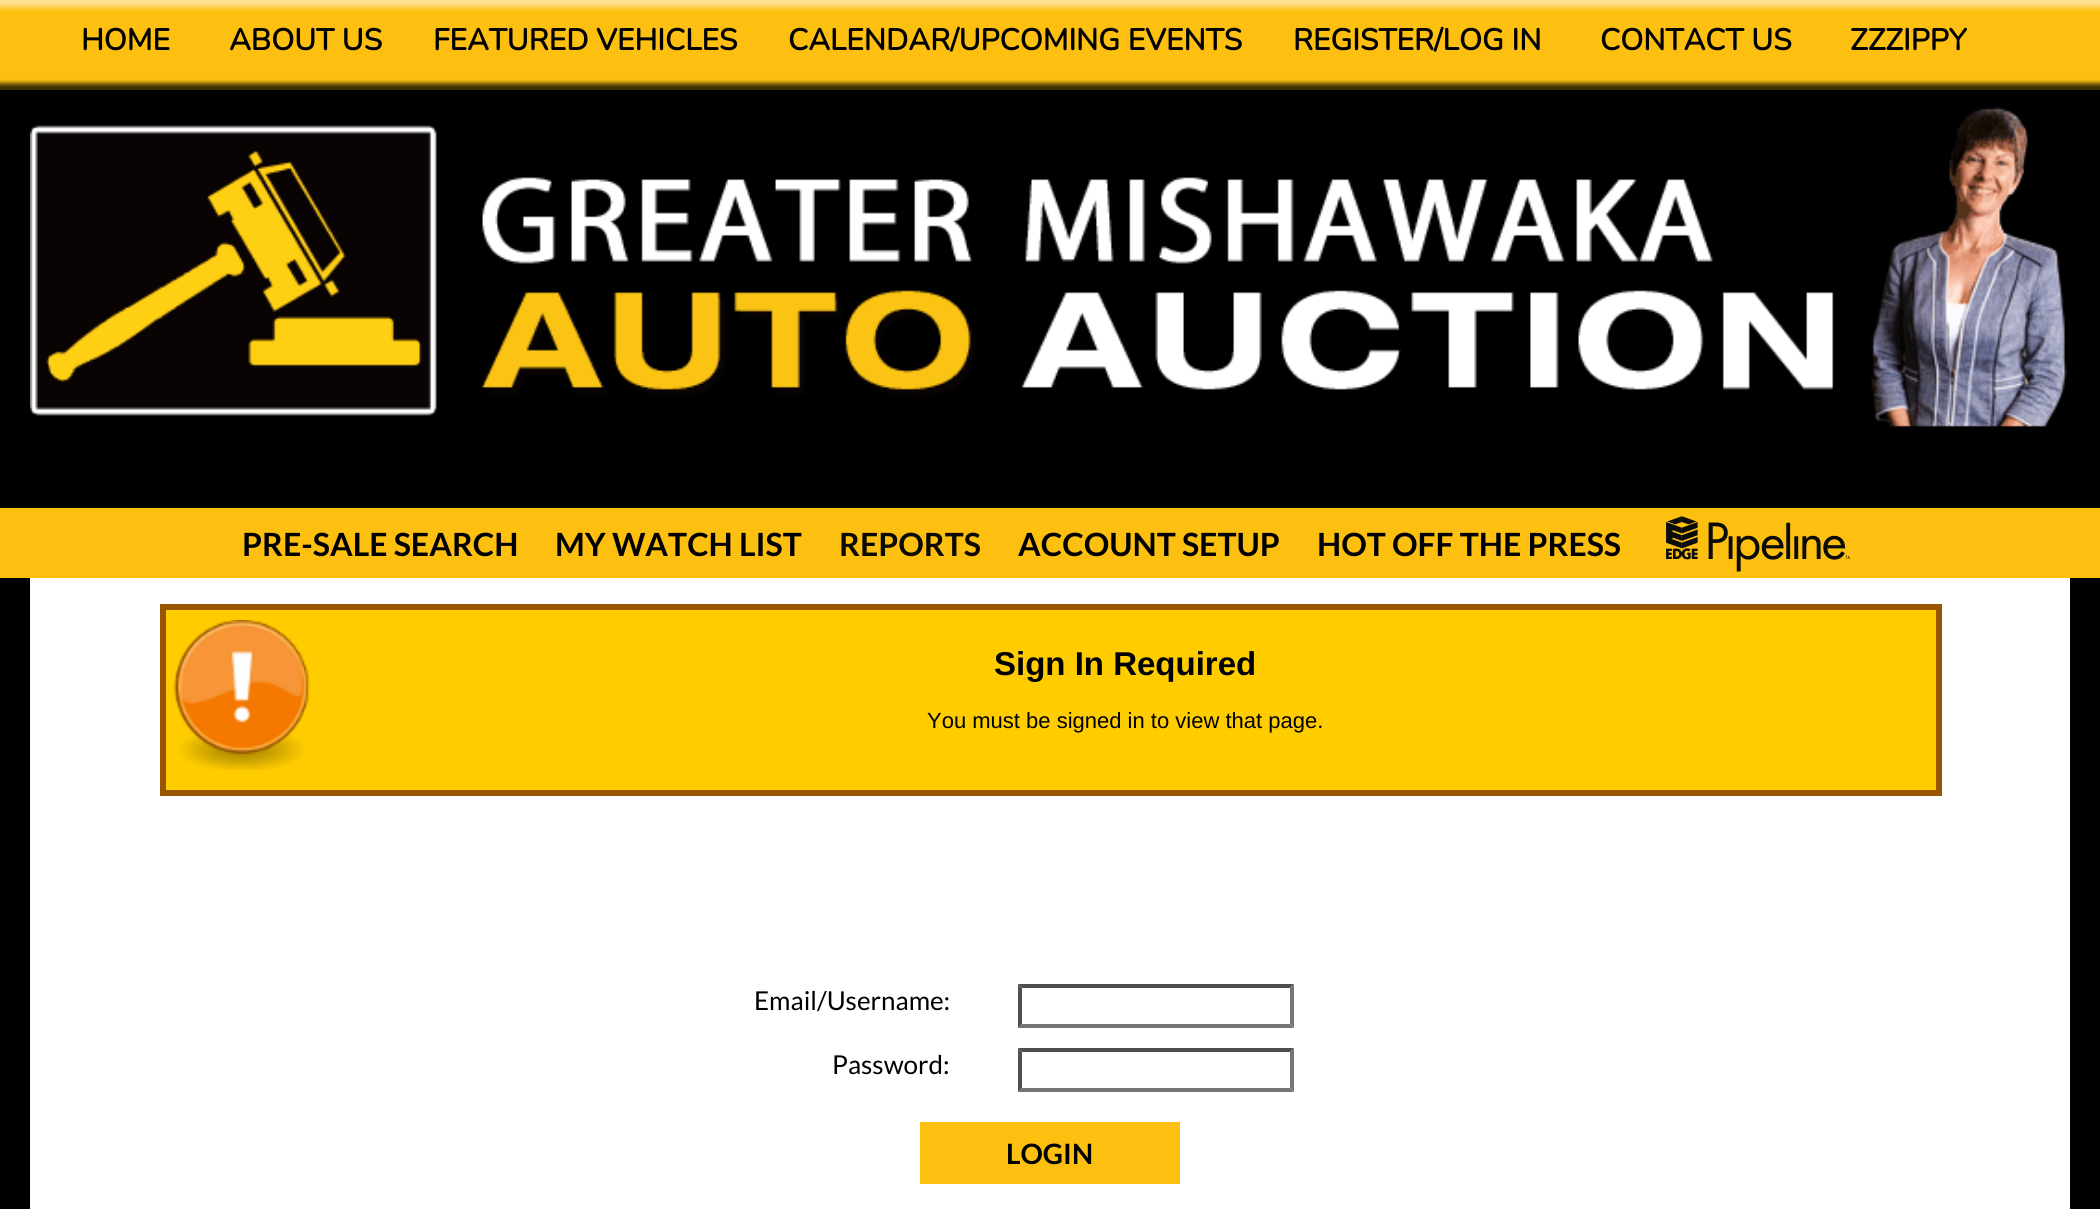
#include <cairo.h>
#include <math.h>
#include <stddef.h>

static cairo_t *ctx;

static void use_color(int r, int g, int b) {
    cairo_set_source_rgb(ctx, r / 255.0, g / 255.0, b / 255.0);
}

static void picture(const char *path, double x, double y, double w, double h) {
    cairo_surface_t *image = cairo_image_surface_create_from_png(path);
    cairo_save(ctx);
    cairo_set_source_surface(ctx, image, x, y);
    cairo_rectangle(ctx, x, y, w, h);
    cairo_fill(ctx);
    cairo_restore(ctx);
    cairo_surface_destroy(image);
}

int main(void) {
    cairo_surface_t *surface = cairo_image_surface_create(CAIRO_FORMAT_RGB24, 2100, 1209);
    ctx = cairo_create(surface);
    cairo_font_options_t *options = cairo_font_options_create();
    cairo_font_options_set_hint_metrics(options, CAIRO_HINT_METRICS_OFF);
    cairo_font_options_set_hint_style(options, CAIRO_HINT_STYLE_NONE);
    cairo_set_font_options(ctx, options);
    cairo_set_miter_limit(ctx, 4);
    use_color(0, 0, 0);
    cairo_paint(ctx);
    picture("img1.png", 0, 0, 2100, 90);
    cairo_select_font_face(ctx, "Nunito", CAIRO_FONT_SLANT_NORMAL, CAIRO_FONT_WEIGHT_BOLD);
    cairo_set_font_size(ctx, 30);
    use_color(0, 0, 0);
    cairo_move_to(ctx, 81, 50);
    cairo_show_text(ctx, "HOME");
    cairo_move_to(ctx, 229, 50);
    cairo_show_text(ctx, "ABOUT US");
    cairo_move_to(ctx, 433, 50);
    cairo_show_text(ctx, "FEATURED VEHICLES");
    cairo_move_to(ctx, 788, 50);
    cairo_show_text(ctx, "CALENDAR/UPCOMING EVENTS");
    cairo_move_to(ctx, 1293, 50);
    cairo_show_text(ctx, "REGISTER/LOG IN");
    cairo_move_to(ctx, 1600, 50);
    cairo_show_text(ctx, "CONTACT US");
    cairo_move_to(ctx, 1850, 50);
    cairo_show_text(ctx, "ZZZIPPY");
    picture("img2.png", 30, 107, 2037, 320);
    use_color(253, 192, 16);
    cairo_rectangle(ctx, 0, 508, 2100, 70);
    cairo_fill(ctx);
    cairo_select_font_face(ctx, "Lato", CAIRO_FONT_SLANT_NORMAL, CAIRO_FONT_WEIGHT_BOLD);
    cairo_set_font_size(ctx, 32);
    use_color(0, 0, 0);
    cairo_move_to(ctx, 242, 556);
    cairo_show_text(ctx, "PRE-SALE SEARCH");
    cairo_move_to(ctx, 555, 556);
    cairo_show_text(ctx, "MY WATCH LIST");
    use_color(13, 10, 1);
    cairo_move_to(ctx, 839, 556);
    cairo_show_text(ctx, "REPORTS");
    use_color(0, 0, 0);
    cairo_move_to(ctx, 1018, 556);
    cairo_show_text(ctx, "ACCOUNT SETUP");
    cairo_move_to(ctx, 1317, 556);
    cairo_show_text(ctx, "HOT OFF THE PRESS");
    picture("img3.png", 1666, 516, 184, 56);
    use_color(255, 255, 255);
    cairo_rectangle(ctx, 30, 578, 2040, 631);
    cairo_fill(ctx);
    use_color(255, 204, 0);
    cairo_rectangle(ctx, 166, 610, 1770, 180);
    cairo_fill(ctx);
    picture("img4.png", 173, 620, 137, 150);
    cairo_rectangle(ctx, 163, 607, 1776, 186);
    use_color(153, 85, 0);
    cairo_set_line_width(ctx, 6);
    cairo_stroke(ctx);
    cairo_select_font_face(ctx, "Liberation Sans", CAIRO_FONT_SLANT_NORMAL, CAIRO_FONT_WEIGHT_BOLD);
    cairo_set_font_size(ctx, 33);
    use_color(0, 0, 0);
    cairo_move_to(ctx, 994, 675);
    cairo_show_text(ctx, "Sign In Required");
    cairo_select_font_face(ctx, "Liberation Sans", CAIRO_FONT_SLANT_NORMAL, CAIRO_FONT_WEIGHT_NORMAL);
    cairo_set_font_size(ctx, 22);
    cairo_move_to(ctx, 927, 728);
    cairo_show_text(ctx, "You must be signed in to view that page.");
    cairo_select_font_face(ctx, "Lato", CAIRO_FONT_SLANT_NORMAL, CAIRO_FONT_WEIGHT_NORMAL);
    cairo_set_font_size(ctx, 26);
    cairo_move_to(ctx, 754, 1010);
    cairo_show_text(ctx, "Email/Username:");
    use_color(79, 79, 79);
    cairo_new_path(ctx);
    cairo_move_to(ctx, 1018, 984);
    cairo_line_to(ctx, 1294, 984);
    cairo_line_to(ctx, 1290, 988);
    cairo_line_to(ctx, 1022, 988);
    cairo_close_path(ctx);
    cairo_fill(ctx);
    use_color(118, 118, 118);
    cairo_new_path(ctx);
    cairo_move_to(ctx, 1294, 984);
    cairo_line_to(ctx, 1294, 1028);
    cairo_line_to(ctx, 1290, 1024);
    cairo_line_to(ctx, 1290, 988);
    cairo_close_path(ctx);
    cairo_fill(ctx);
    cairo_new_path(ctx);
    cairo_move_to(ctx, 1294, 1028);
    cairo_line_to(ctx, 1018, 1028);
    cairo_line_to(ctx, 1022, 1024);
    cairo_line_to(ctx, 1290, 1024);
    cairo_close_path(ctx);
    cairo_fill(ctx);
    use_color(79, 79, 79);
    cairo_new_path(ctx);
    cairo_move_to(ctx, 1018, 1028);
    cairo_line_to(ctx, 1018, 984);
    cairo_line_to(ctx, 1022, 988);
    cairo_line_to(ctx, 1022, 1024);
    cairo_close_path(ctx);
    cairo_fill(ctx);
    use_color(0, 0, 0);
    cairo_move_to(ctx, 832, 1074);
    cairo_show_text(ctx, "Password:");
    use_color(79, 79, 79);
    cairo_new_path(ctx);
    cairo_move_to(ctx, 1018, 1048);
    cairo_line_to(ctx, 1294, 1048);
    cairo_line_to(ctx, 1290, 1052);
    cairo_line_to(ctx, 1022, 1052);
    cairo_close_path(ctx);
    cairo_fill(ctx);
    use_color(118, 118, 118);
    cairo_new_path(ctx);
    cairo_move_to(ctx, 1294, 1048);
    cairo_line_to(ctx, 1294, 1092);
    cairo_line_to(ctx, 1290, 1088);
    cairo_line_to(ctx, 1290, 1052);
    cairo_close_path(ctx);
    cairo_fill(ctx);
    cairo_new_path(ctx);
    cairo_move_to(ctx, 1294, 1092);
    cairo_line_to(ctx, 1018, 1092);
    cairo_line_to(ctx, 1022, 1088);
    cairo_line_to(ctx, 1290, 1088);
    cairo_close_path(ctx);
    cairo_fill(ctx);
    use_color(79, 79, 79);
    cairo_new_path(ctx);
    cairo_move_to(ctx, 1018, 1092);
    cairo_line_to(ctx, 1018, 1048);
    cairo_line_to(ctx, 1022, 1052);
    cairo_line_to(ctx, 1022, 1088);
    cairo_close_path(ctx);
    cairo_fill(ctx);
    use_color(253, 192, 16);
    cairo_rectangle(ctx, 920, 1122, 260, 62);
    cairo_fill(ctx);
    cairo_select_font_face(ctx, "Lato", CAIRO_FONT_SLANT_NORMAL, CAIRO_FONT_WEIGHT_BOLD);
    cairo_set_font_size(ctx, 28);
    use_color(0, 0, 0);
    cairo_move_to(ctx, 1006, 1164);
    cairo_show_text(ctx, "LOGIN");
    cairo_surface_write_to_png(surface, "result.png");
    cairo_font_options_destroy(options);
    cairo_destroy(ctx);
    cairo_surface_destroy(surface);
    return 0;
}
